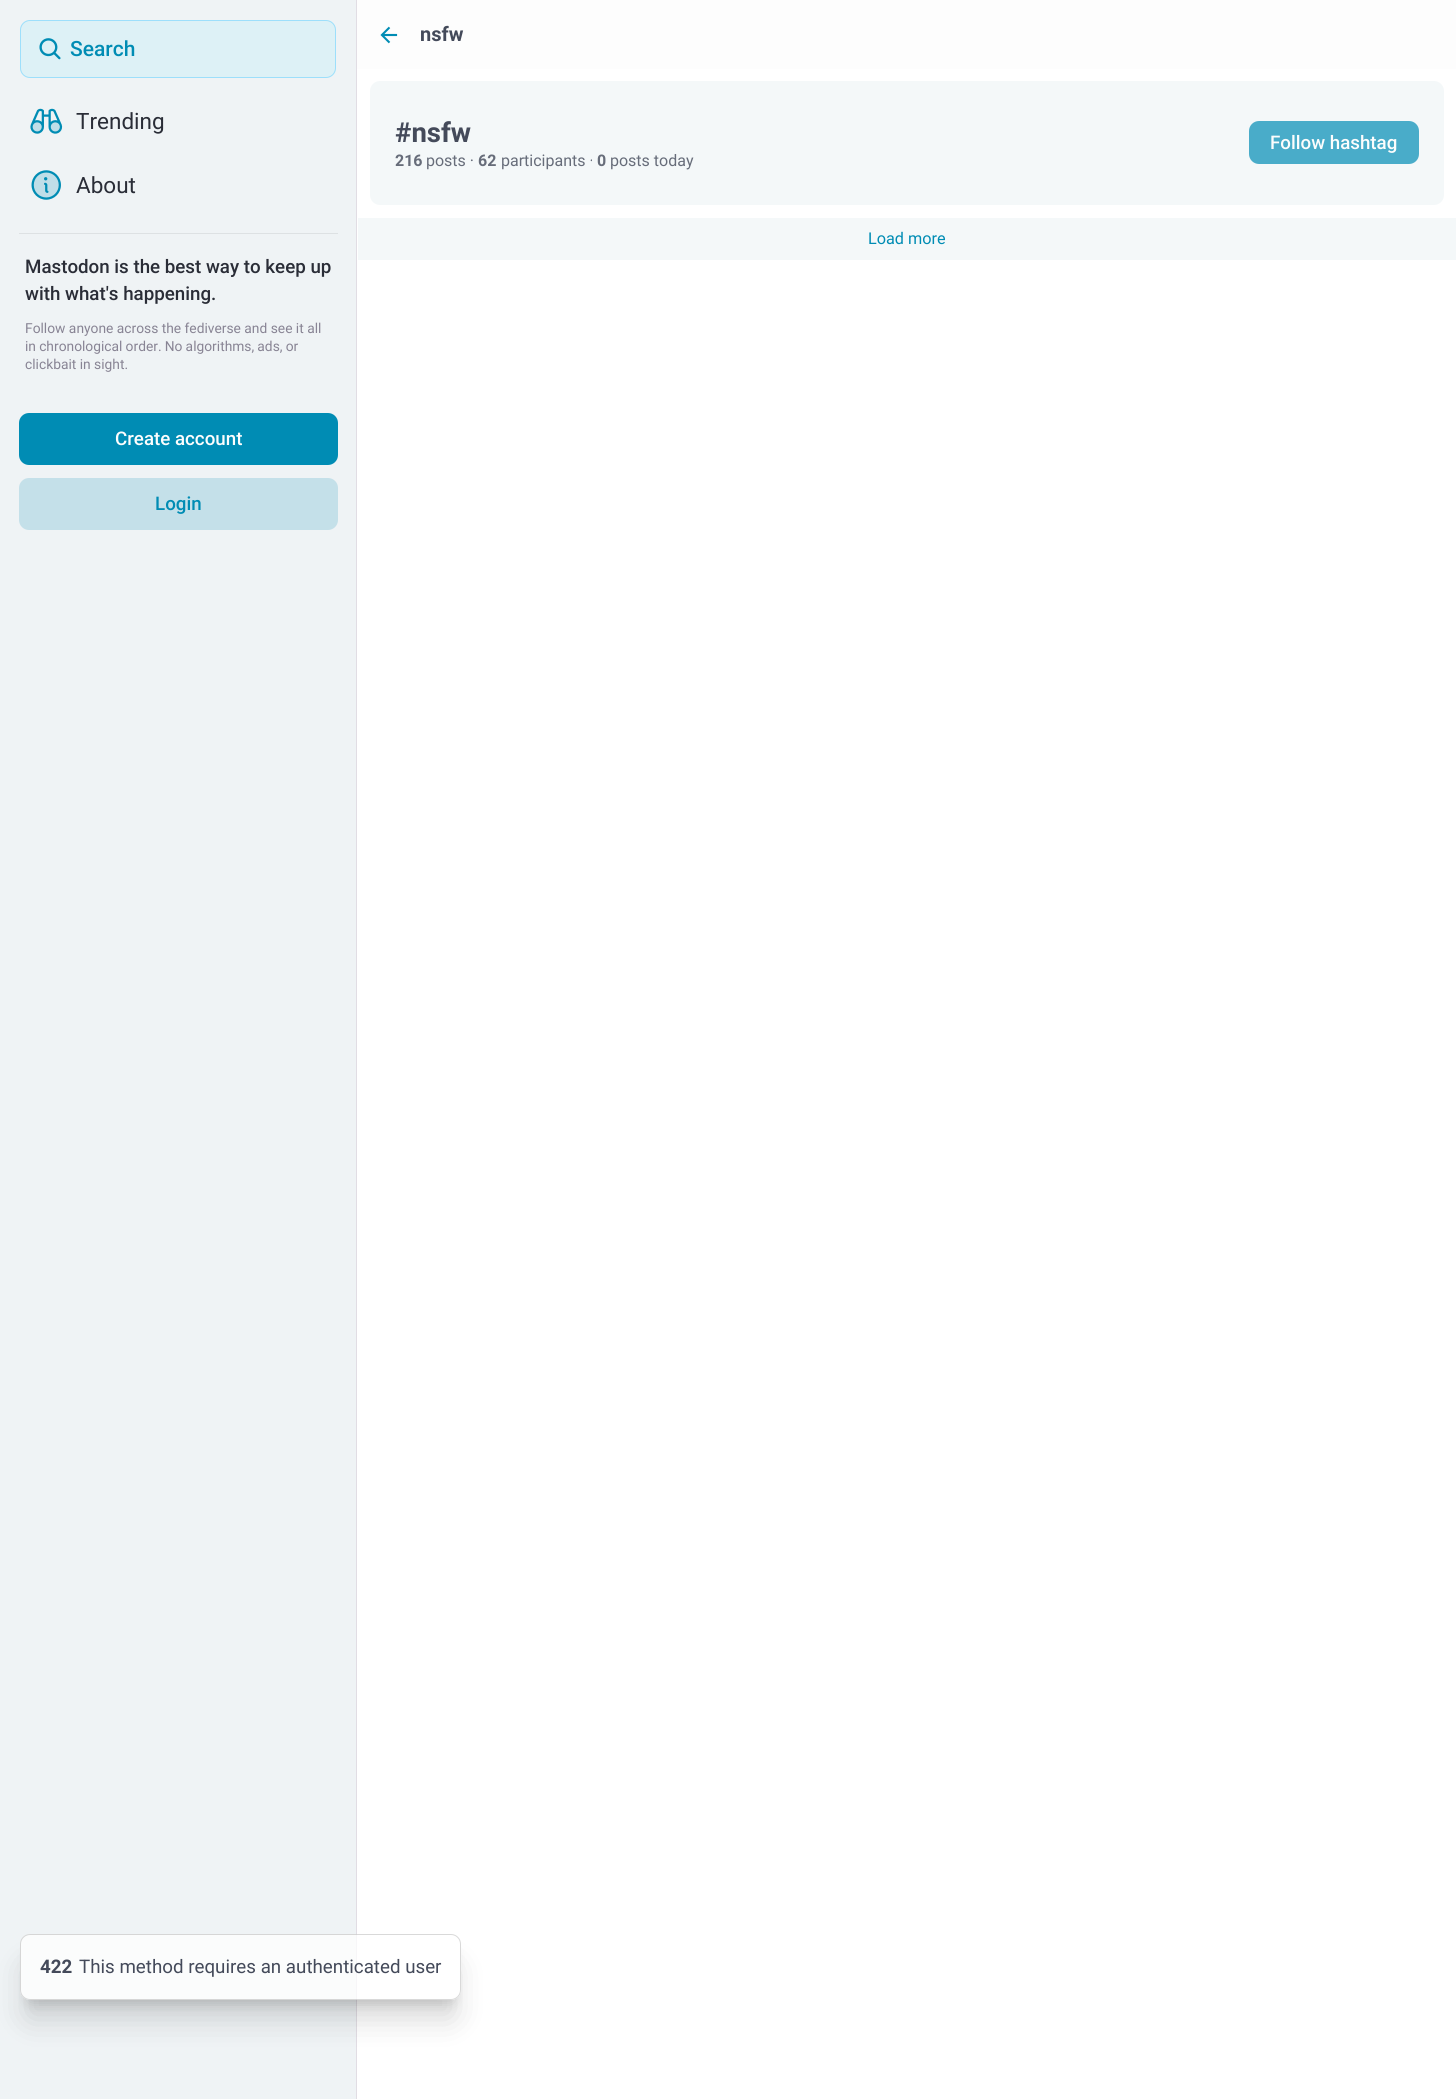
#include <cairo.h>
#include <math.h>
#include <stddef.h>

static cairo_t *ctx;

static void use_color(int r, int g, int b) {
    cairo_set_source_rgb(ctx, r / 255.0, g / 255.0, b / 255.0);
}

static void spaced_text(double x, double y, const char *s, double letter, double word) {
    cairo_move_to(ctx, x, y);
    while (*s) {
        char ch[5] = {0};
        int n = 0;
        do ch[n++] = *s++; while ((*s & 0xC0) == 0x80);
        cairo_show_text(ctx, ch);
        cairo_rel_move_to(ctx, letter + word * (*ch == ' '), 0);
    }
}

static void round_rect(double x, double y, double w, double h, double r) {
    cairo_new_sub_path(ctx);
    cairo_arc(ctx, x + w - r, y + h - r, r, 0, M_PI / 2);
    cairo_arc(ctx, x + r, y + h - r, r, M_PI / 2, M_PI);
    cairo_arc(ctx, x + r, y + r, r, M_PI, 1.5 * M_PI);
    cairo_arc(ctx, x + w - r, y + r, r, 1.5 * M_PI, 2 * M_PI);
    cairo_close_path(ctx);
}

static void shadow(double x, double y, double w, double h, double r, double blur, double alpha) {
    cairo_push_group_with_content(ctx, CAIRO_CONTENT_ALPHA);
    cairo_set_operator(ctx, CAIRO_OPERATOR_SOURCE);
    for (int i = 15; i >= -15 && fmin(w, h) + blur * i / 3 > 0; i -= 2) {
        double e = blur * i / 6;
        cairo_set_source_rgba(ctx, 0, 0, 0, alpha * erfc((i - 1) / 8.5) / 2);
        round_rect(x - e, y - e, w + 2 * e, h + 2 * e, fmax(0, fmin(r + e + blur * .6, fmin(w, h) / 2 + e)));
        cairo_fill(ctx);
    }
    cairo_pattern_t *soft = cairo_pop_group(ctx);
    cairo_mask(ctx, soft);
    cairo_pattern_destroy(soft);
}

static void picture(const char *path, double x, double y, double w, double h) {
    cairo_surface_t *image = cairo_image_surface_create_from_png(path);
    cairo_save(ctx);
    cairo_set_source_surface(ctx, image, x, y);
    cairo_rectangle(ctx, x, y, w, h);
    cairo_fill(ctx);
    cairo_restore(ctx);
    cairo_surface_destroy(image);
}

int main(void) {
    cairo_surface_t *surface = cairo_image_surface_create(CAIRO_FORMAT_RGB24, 1456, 2099);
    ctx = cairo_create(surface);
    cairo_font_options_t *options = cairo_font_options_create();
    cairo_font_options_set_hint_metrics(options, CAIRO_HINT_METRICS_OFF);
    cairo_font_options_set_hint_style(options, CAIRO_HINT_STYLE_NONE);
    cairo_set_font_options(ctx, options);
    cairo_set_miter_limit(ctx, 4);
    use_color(239, 243, 245);
    cairo_paint(ctx);
    use_color(221, 241, 246);
    round_rect(20, 20, 316, 58, 10);
    cairo_fill(ctx);
    round_rect(20.5, 20.5, 315, 57, 9.5);
    cairo_set_source_rgba(ctx, 0.388, 0.812, 1, 0.52);
    cairo_set_line_width(ctx, 1);
    cairo_stroke(ctx);
    picture("img1.png", 39, 38, 22, 22);
    cairo_select_font_face(ctx, "Roboto Medium", CAIRO_FONT_SLANT_NORMAL, CAIRO_FONT_WEIGHT_NORMAL);
    cairo_set_font_size(ctx, 21);
    use_color(0, 140, 180);
    cairo_move_to(ctx, 70, 56);
    cairo_show_text(ctx, "Search");
    picture("img2.png", 30, 108, 33, 26);
    cairo_select_font_face(ctx, "Roboto", CAIRO_FONT_SLANT_NORMAL, CAIRO_FONT_WEIGHT_NORMAL);
    cairo_set_font_size(ctx, 22.5);
    use_color(42, 45, 55);
    cairo_move_to(ctx, 76, 129);
    cairo_show_text(ctx, "Trending");
    picture("img3.png", 31, 170, 30, 30);
    cairo_move_to(ctx, 76, 193);
    cairo_show_text(ctx, "About");
    use_color(221, 225, 227);
    cairo_rectangle(ctx, 19, 233, 319, 1);
    cairo_fill(ctx);
    cairo_select_font_face(ctx, "Roboto Medium", CAIRO_FONT_SLANT_NORMAL, CAIRO_FONT_WEIGHT_NORMAL);
    cairo_set_font_size(ctx, 18.75);
    use_color(42, 45, 55);
    cairo_move_to(ctx, 25, 273);
    cairo_show_text(ctx, "Mastodon is the best way to keep up");
    cairo_move_to(ctx, 25, 300);
    cairo_show_text(ctx, "with what's happening.");
    cairo_select_font_face(ctx, "Roboto", CAIRO_FONT_SLANT_NORMAL, CAIRO_FONT_WEIGHT_NORMAL);
    cairo_set_font_size(ctx, 13.8);
    use_color(136, 132, 148);
    cairo_move_to(ctx, 25, 333);
    cairo_show_text(ctx, "Follow anyone across the fediverse and see it all");
    spaced_text(25, 351, "in chronological order. No algorithms, ads, or", 0, -0.25);
    cairo_move_to(ctx, 25, 369);
    cairo_show_text(ctx, "clickbait in sight.");
    use_color(0, 140, 180);
    round_rect(19, 413, 319, 52, 10);
    cairo_fill(ctx);
    cairo_select_font_face(ctx, "Roboto Medium", CAIRO_FONT_SLANT_NORMAL, CAIRO_FONT_WEIGHT_NORMAL);
    cairo_set_font_size(ctx, 18.75);
    use_color(252, 253, 253);
    cairo_move_to(ctx, 115, 445);
    cairo_show_text(ctx, "Create account");
    use_color(196, 224, 233);
    round_rect(19, 478, 319, 52, 10);
    cairo_fill(ctx);
    use_color(0, 140, 180);
    cairo_move_to(ctx, 155, 510);
    cairo_show_text(ctx, "Login");
    use_color(253, 253, 253);
    cairo_rectangle(ctx, 357, 0, 1099, 69);
    cairo_fill(ctx);
    picture("img4.png", 380, 26, 18, 18);
    cairo_select_font_face(ctx, "Roboto", CAIRO_FONT_SLANT_NORMAL, CAIRO_FONT_WEIGHT_BOLD);
    cairo_set_font_size(ctx, 20);
    use_color(68, 74, 90);
    cairo_move_to(ctx, 420, 41);
    cairo_show_text(ctx, "nsfw");
    use_color(255, 255, 255);
    cairo_rectangle(ctx, 357, 69, 1099, 2030);
    cairo_fill(ctx);
    use_color(225, 221, 228);
    cairo_rectangle(ctx, 356, 0, 1, 2099);
    cairo_fill(ctx);
    use_color(244, 248, 249);
    round_rect(370, 81, 1074, 124, 10);
    cairo_fill(ctx);
    cairo_set_font_size(ctx, 27.5);
    use_color(68, 74, 90);
    cairo_move_to(ctx, 395, 142);
    cairo_show_text(ctx, "#nsfw");
    use_color(73, 172, 201);
    round_rect(1249, 121, 170, 43, 10);
    cairo_fill(ctx);
    cairo_select_font_face(ctx, "Roboto Medium", CAIRO_FONT_SLANT_NORMAL, CAIRO_FONT_WEIGHT_NORMAL);
    cairo_set_font_size(ctx, 18.75);
    use_color(252, 253, 253);
    cairo_move_to(ctx, 1270, 149);
    cairo_show_text(ctx, "Follow hashtag");
    cairo_select_font_face(ctx, "Roboto", CAIRO_FONT_SLANT_NORMAL, CAIRO_FONT_WEIGHT_BOLD);
    cairo_set_font_size(ctx, 16);
    use_color(103, 109, 122);
    cairo_move_to(ctx, 395, 166);
    cairo_show_text(ctx, "216");
    cairo_select_font_face(ctx, "Roboto", CAIRO_FONT_SLANT_NORMAL, CAIRO_FONT_WEIGHT_NORMAL);
    cairo_move_to(ctx, 426, 166);
    cairo_show_text(ctx, "posts ·");
    cairo_select_font_face(ctx, "Roboto", CAIRO_FONT_SLANT_NORMAL, CAIRO_FONT_WEIGHT_BOLD);
    cairo_move_to(ctx, 478, 166);
    cairo_show_text(ctx, "62");
    cairo_select_font_face(ctx, "Roboto", CAIRO_FONT_SLANT_NORMAL, CAIRO_FONT_WEIGHT_NORMAL);
    cairo_move_to(ctx, 501, 166);
    cairo_show_text(ctx, "participants ·");
    cairo_select_font_face(ctx, "Roboto", CAIRO_FONT_SLANT_NORMAL, CAIRO_FONT_WEIGHT_BOLD);
    cairo_move_to(ctx, 597, 166);
    cairo_show_text(ctx, "0");
    cairo_select_font_face(ctx, "Roboto", CAIRO_FONT_SLANT_NORMAL, CAIRO_FONT_WEIGHT_NORMAL);
    cairo_move_to(ctx, 610, 166);
    cairo_show_text(ctx, "posts today");
    use_color(244, 248, 249);
    cairo_rectangle(ctx, 358, 218, 1098, 42);
    cairo_fill(ctx);
    cairo_set_font_size(ctx, 16.25);
    use_color(0, 140, 180);
    cairo_move_to(ctx, 868, 244);
    cairo_show_text(ctx, "Load more");
    cairo_save(ctx);
    cairo_set_fill_rule(ctx, CAIRO_FILL_RULE_EVEN_ODD);
    cairo_new_path(ctx);
    cairo_move_to(ctx, 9, 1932);
    cairo_line_to(ctx, 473, 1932);
    cairo_line_to(ctx, 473, 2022);
    cairo_line_to(ctx, 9, 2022);
    cairo_close_path(ctx);
    cairo_move_to(ctx, 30, 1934);
    cairo_line_to(ctx, 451, 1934);
    cairo_curve_to(ctx, 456.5, 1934, 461, 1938.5, 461, 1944);
    cairo_line_to(ctx, 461, 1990);
    cairo_curve_to(ctx, 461, 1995.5, 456.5, 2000, 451, 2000);
    cairo_line_to(ctx, 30, 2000);
    cairo_curve_to(ctx, 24.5, 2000, 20, 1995.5, 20, 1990);
    cairo_line_to(ctx, 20, 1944);
    cairo_curve_to(ctx, 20, 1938.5, 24.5, 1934, 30, 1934);
    cairo_close_path(ctx);
    cairo_clip(ctx);
    use_color(0, 0, 0);
    shadow(28, 1951, 426, 52, 2.5, 6, 0.15);
    cairo_restore(ctx);
    cairo_save(ctx);
    cairo_set_fill_rule(ctx, CAIRO_FILL_RULE_EVEN_ODD);
    cairo_new_path(ctx);
    cairo_move_to(ctx, 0, 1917);
    cairo_line_to(ctx, 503, 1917);
    cairo_line_to(ctx, 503, 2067);
    cairo_line_to(ctx, 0, 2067);
    cairo_close_path(ctx);
    cairo_move_to(ctx, 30, 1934);
    cairo_line_to(ctx, 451, 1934);
    cairo_curve_to(ctx, 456.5, 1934, 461, 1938.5, 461, 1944);
    cairo_line_to(ctx, 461, 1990);
    cairo_curve_to(ctx, 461, 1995.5, 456.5, 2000, 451, 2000);
    cairo_line_to(ctx, 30, 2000);
    cairo_curve_to(ctx, 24.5, 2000, 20, 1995.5, 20, 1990);
    cairo_line_to(ctx, 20, 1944);
    cairo_curve_to(ctx, 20, 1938.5, 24.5, 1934, 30, 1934);
    cairo_close_path(ctx);
    cairo_clip(ctx);
    use_color(0, 0, 0);
    shadow(26, 1965, 429, 54, 4, 15.5, 0.15);
    cairo_restore(ctx);
    cairo_set_source_rgba(ctx, 1, 1, 1, 0.75);
    round_rect(20, 1934, 441, 66, 10);
    cairo_fill(ctx);
    round_rect(20.5, 1934.5, 440, 65, 9.5);
    cairo_set_source_rgba(ctx, 0, 0, 0, 0.15);
    cairo_stroke(ctx);
    cairo_select_font_face(ctx, "Roboto", CAIRO_FONT_SLANT_NORMAL, CAIRO_FONT_WEIGHT_BOLD);
    cairo_set_font_size(ctx, 18.75);
    use_color(68, 74, 90);
    cairo_move_to(ctx, 40, 1973);
    cairo_show_text(ctx, "422");
    cairo_select_font_face(ctx, "Roboto", CAIRO_FONT_SLANT_NORMAL, CAIRO_FONT_WEIGHT_NORMAL);
    cairo_move_to(ctx, 79, 1973);
    cairo_show_text(ctx, "This method requires an authenticated user");
    cairo_surface_write_to_png(surface, "result.png");
    cairo_font_options_destroy(options);
    cairo_destroy(ctx);
    cairo_surface_destroy(surface);
    return 0;
}
